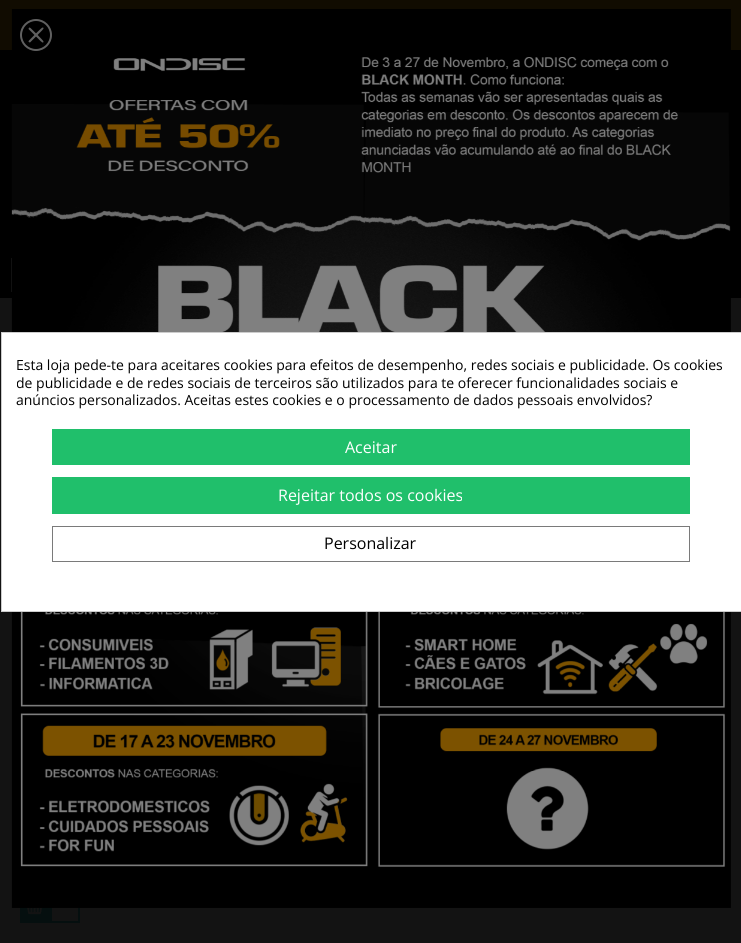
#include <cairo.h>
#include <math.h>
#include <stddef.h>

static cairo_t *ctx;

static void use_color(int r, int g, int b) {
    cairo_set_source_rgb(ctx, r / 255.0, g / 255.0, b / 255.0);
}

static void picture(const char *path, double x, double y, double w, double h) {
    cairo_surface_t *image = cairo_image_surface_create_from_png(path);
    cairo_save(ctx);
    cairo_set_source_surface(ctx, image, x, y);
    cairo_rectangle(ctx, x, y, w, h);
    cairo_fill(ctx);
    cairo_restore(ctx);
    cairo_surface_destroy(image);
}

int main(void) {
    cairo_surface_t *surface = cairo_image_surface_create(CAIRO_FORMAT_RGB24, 741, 943);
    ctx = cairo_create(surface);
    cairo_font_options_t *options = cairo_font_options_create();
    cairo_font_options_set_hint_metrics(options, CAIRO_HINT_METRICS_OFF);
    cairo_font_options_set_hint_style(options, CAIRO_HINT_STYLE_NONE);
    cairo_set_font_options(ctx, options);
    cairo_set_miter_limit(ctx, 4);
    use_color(19, 19, 19);
    cairo_paint(ctx);
    use_color(17, 12, 1);
    cairo_rectangle(ctx, 0, 0, 741, 50);
    cairo_fill(ctx);
    use_color(0, 0, 0);
    cairo_rectangle(ctx, 0, 50, 741, 248);
    cairo_fill(ctx);
    use_color(19, 19, 19);
    cairo_rectangle(ctx, 11, 258, 1, 34);
    cairo_fill(ctx);
    use_color(5, 15, 15);
    cairo_rectangle(ctx, 20, 907, 30, 16);
    cairo_fill(ctx);
    picture("img2.png", 26, 907, 17, 8);
    cairo_rectangle(ctx, 51, 894, 28, 28);
    cairo_stroke(ctx);
    picture("img1.png", 11, 9, 720, 899);
    cairo_arc(ctx, 36, 35, 15, 0, 2 * M_PI);
    use_color(96, 96, 96);
    cairo_stroke(ctx);
    cairo_new_path(ctx);
    cairo_move_to(ctx, 30.5, 28);
    cairo_curve_to(ctx, 32, 29.5, 43.5, 40.5, 43.5, 41.5);
    cairo_curve_to(ctx, 43.5, 44, 41, 41.5, 39.5, 40);
    cairo_line_to(ctx, 28.5, 29);
    cairo_curve_to(ctx, 28.5, 28.5, 29, 27.5, 29.5, 27.5);
    cairo_close_path(ctx);
    cairo_fill(ctx);
    cairo_new_path(ctx);
    cairo_move_to(ctx, 29, 40.5);
    cairo_curve_to(ctx, 30.5, 39, 41.5, 27.5, 42.5, 27.5);
    cairo_curve_to(ctx, 45, 27.5, 42.5, 30, 41, 31.5);
    cairo_line_to(ctx, 30, 42.5);
    cairo_curve_to(ctx, 29.5, 42.5, 28.5, 42, 28.5, 41.5);
    cairo_close_path(ctx);
    cairo_fill(ctx);
    use_color(255, 255, 255);
    cairo_rectangle(ctx, 1.5, 332.5, 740, 279);
    cairo_fill_preserve(ctx);
    use_color(204, 204, 204);
    cairo_set_line_width(ctx, 1);
    cairo_stroke(ctx);
    cairo_select_font_face(ctx, "Open Sans", CAIRO_FONT_SLANT_NORMAL, CAIRO_FONT_WEIGHT_NORMAL);
    cairo_set_font_size(ctx, 14);
    use_color(0, 0, 0);
    cairo_move_to(ctx, 16, 370);
    cairo_show_text(ctx, "Esta loja pede-te para aceitares cookies para efeitos de desempenho, redes sociais e publicidade. Os cookies");
    cairo_save(ctx);
    cairo_rectangle(ctx, 17, 357, 709, 52);
    cairo_clip(ctx);
    cairo_move_to(ctx, 16, 388);
    cairo_show_text(ctx, "de publicidade e de redes sociais de terceiros são utilizados para te oferecer funcionalidades sociais e");
    cairo_restore(ctx);
    cairo_move_to(ctx, 16, 405);
    cairo_show_text(ctx, "anúncios personalizados. Aceitas estes cookies e o processamento de dados pessoais envolvidos?");
    use_color(32, 191, 107);
    cairo_rectangle(ctx, 52, 429, 638, 36);
    cairo_fill(ctx);
    cairo_set_font_size(ctx, 16);
    use_color(255, 255, 255);
    cairo_move_to(ctx, 345, 453);
    cairo_show_text(ctx, "Aceitar");
    use_color(32, 191, 107);
    cairo_rectangle(ctx, 52, 477, 638, 37);
    cairo_fill(ctx);
    use_color(255, 255, 255);
    cairo_move_to(ctx, 278, 501);
    cairo_show_text(ctx, "Rejeitar todos os cookies");
    cairo_rectangle(ctx, 52.5, 526.5, 637, 35);
    use_color(122, 122, 122);
    cairo_stroke(ctx);
    use_color(0, 0, 0);
    cairo_move_to(ctx, 324, 549);
    cairo_show_text(ctx, "Personalizar");
    cairo_surface_write_to_png(surface, "result.png");
    cairo_font_options_destroy(options);
    cairo_destroy(ctx);
    cairo_surface_destroy(surface);
    return 0;
}
